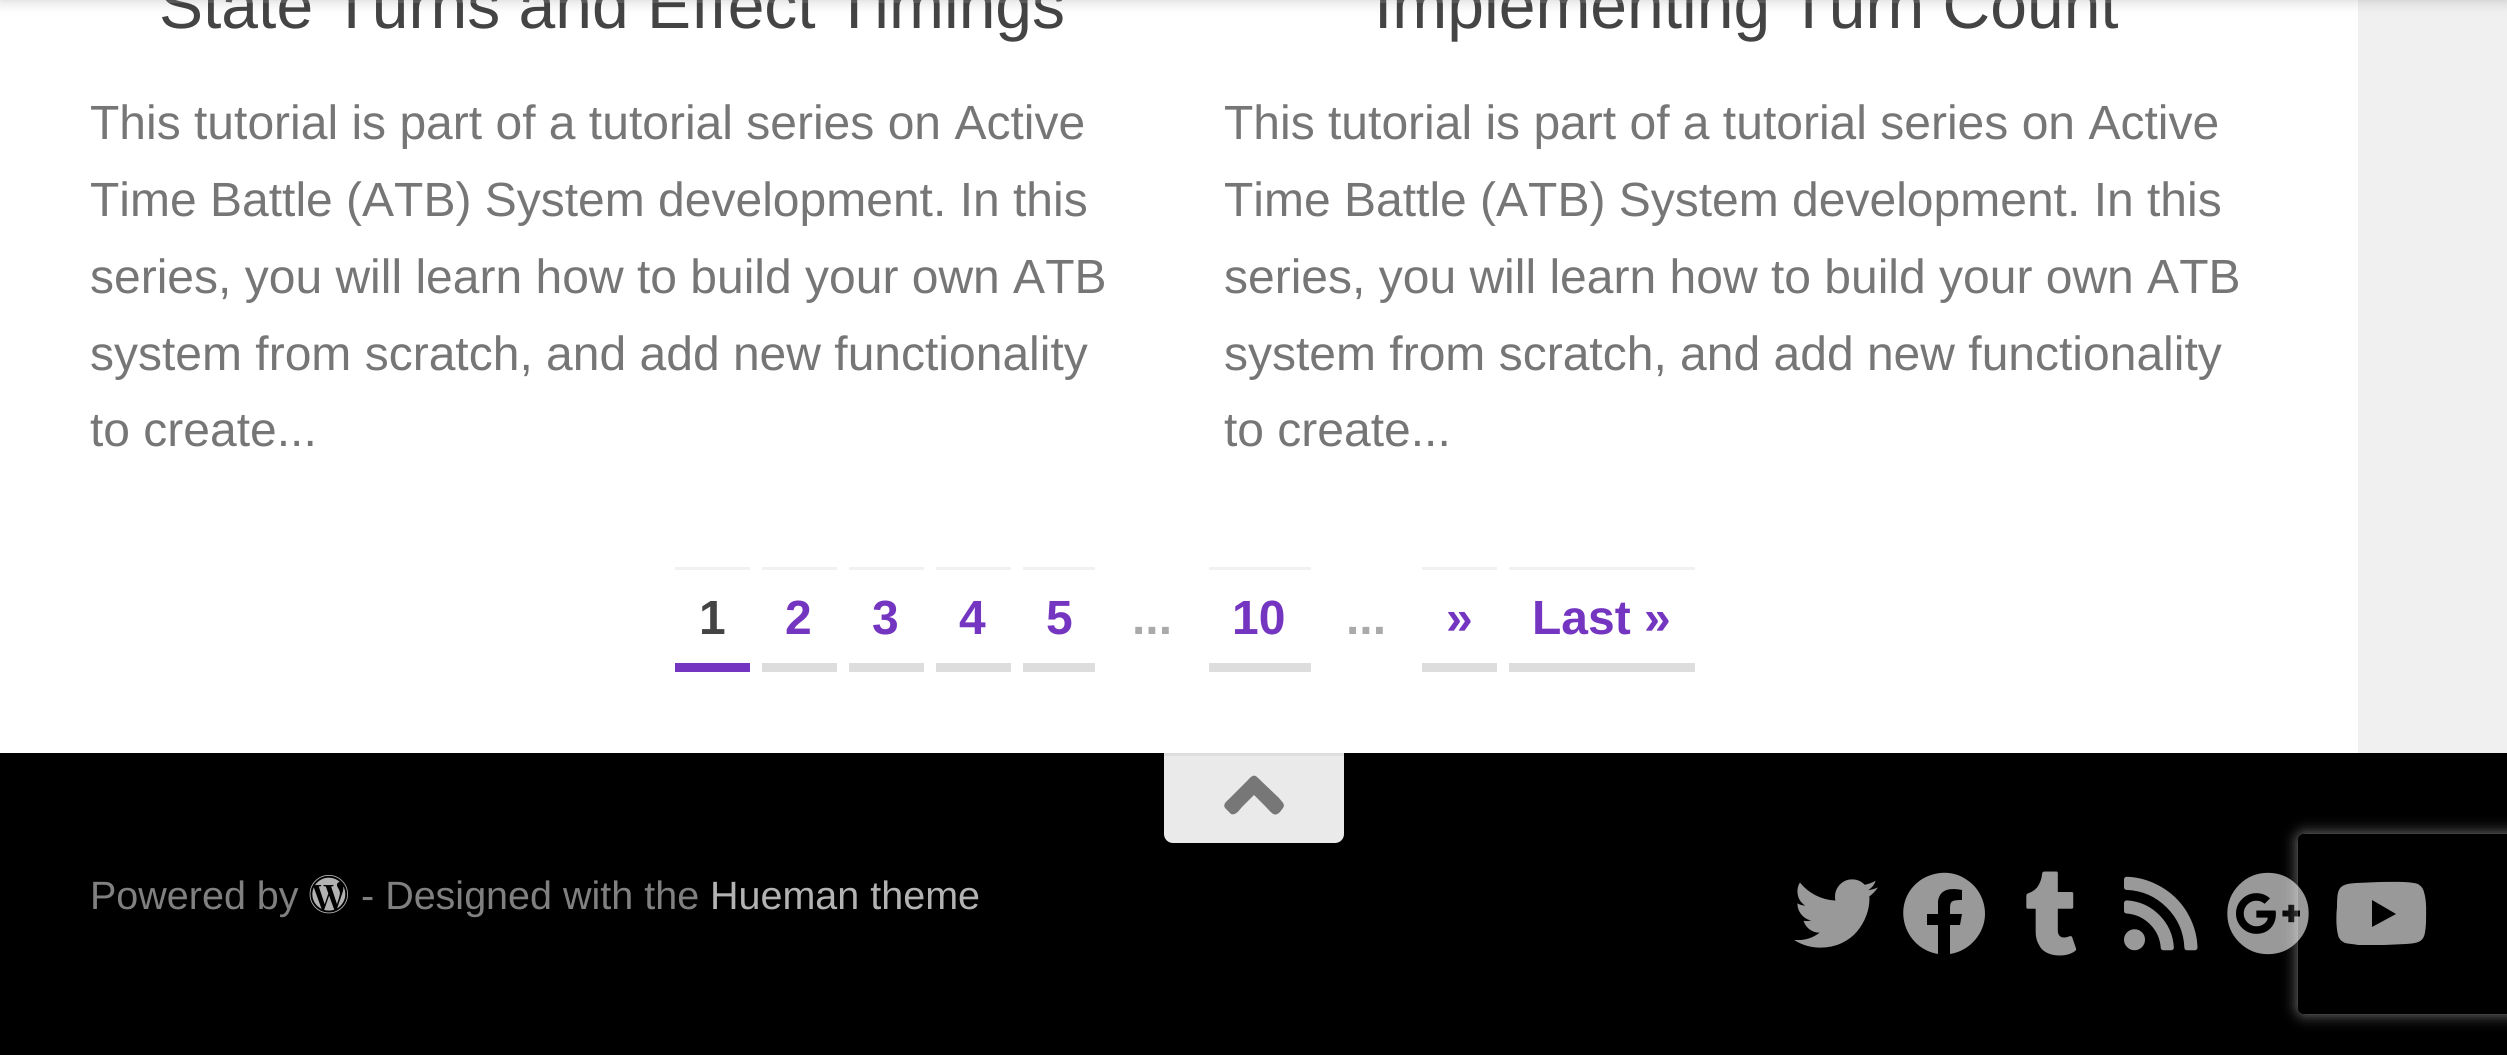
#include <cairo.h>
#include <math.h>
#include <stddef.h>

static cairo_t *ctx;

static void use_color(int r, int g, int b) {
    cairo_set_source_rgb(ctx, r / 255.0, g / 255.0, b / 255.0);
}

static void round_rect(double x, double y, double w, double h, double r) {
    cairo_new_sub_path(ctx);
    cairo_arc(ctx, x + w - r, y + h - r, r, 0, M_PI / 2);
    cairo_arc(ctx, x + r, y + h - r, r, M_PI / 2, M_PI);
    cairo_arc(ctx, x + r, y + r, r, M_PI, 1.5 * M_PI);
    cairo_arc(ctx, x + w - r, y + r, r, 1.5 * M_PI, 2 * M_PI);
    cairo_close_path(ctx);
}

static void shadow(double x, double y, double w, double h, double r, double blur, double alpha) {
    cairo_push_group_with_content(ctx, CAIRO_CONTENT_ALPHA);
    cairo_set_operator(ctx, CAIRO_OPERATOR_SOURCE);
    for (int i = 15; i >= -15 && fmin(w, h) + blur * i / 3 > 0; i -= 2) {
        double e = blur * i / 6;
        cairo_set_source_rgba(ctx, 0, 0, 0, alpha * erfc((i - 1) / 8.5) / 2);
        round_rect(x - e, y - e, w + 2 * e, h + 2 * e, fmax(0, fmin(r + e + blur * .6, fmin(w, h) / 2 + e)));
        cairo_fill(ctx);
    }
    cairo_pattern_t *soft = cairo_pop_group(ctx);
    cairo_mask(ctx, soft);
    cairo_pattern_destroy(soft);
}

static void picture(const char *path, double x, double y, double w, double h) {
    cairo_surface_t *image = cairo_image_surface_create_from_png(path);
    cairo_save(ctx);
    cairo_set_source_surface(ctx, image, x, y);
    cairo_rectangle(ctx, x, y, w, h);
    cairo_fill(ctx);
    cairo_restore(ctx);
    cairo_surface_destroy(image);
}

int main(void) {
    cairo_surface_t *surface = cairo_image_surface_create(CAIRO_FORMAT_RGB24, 2507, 1055);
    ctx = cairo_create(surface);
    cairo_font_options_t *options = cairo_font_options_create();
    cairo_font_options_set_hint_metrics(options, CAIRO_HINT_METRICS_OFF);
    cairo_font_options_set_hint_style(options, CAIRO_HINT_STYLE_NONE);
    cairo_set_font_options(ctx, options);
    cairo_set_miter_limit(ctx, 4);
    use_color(255, 255, 255);
    cairo_paint(ctx);
    cairo_select_font_face(ctx, "Liberation Sans", CAIRO_FONT_SLANT_NORMAL, CAIRO_FONT_WEIGHT_NORMAL);
    cairo_set_font_size(ctx, 66);
    use_color(68, 68, 68);
    cairo_move_to(ctx, 159, 28);
    cairo_show_text(ctx, "State Turns and Effect Timings");
    cairo_move_to(ctx, 1374, 28);
    cairo_show_text(ctx, "Implementing Turn Count");
    cairo_set_source_rgba(ctx, 1, 1, 1, 0.15);
    cairo_rectangle(ctx, 166, 0, 1945, 3);
    cairo_fill(ctx);
    use_color(240, 240, 240);
    cairo_rectangle(ctx, 2358, 0, 149, 753);
    cairo_fill(ctx);
    use_color(0, 0, 0);
    shadow(0, -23, 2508, 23, 0, 7.5, 0.2);
    cairo_set_font_size(ctx, 48);
    use_color(118, 118, 118);
    cairo_move_to(ctx, 90, 139);
    cairo_show_text(ctx, "This tutorial is part of a tutorial series on Active");
    cairo_move_to(ctx, 90, 216);
    cairo_show_text(ctx, "Time Battle (ATB) System development. In this");
    cairo_move_to(ctx, 90, 293);
    cairo_show_text(ctx, "series, you will learn how to build your own ATB");
    cairo_move_to(ctx, 90, 370);
    cairo_show_text(ctx, "system from scratch, and add new functionality");
    cairo_move_to(ctx, 90, 446);
    cairo_show_text(ctx, "to create...");
    cairo_move_to(ctx, 1224, 139);
    cairo_show_text(ctx, "This tutorial is part of a tutorial series on Active");
    cairo_move_to(ctx, 1224, 216);
    cairo_show_text(ctx, "Time Battle (ATB) System development. In this");
    cairo_move_to(ctx, 1224, 293);
    cairo_show_text(ctx, "series, you will learn how to build your own ATB");
    cairo_move_to(ctx, 1224, 370);
    cairo_show_text(ctx, "system from scratch, and add new functionality");
    cairo_move_to(ctx, 1224, 446);
    cairo_show_text(ctx, "to create...");
    cairo_select_font_face(ctx, "Liberation Sans", CAIRO_FONT_SLANT_NORMAL, CAIRO_FONT_WEIGHT_BOLD);
    use_color(68, 68, 68);
    cairo_move_to(ctx, 699, 634);
    cairo_show_text(ctx, "1");
    use_color(241, 241, 241);
    cairo_rectangle(ctx, 675, 567, 75, 3);
    cairo_fill(ctx);
    use_color(116, 53, 192);
    cairo_rectangle(ctx, 675, 663, 75, 9);
    cairo_fill(ctx);
    cairo_move_to(ctx, 785, 634);
    cairo_show_text(ctx, "2");
    use_color(241, 241, 241);
    cairo_rectangle(ctx, 762, 567, 75, 3);
    cairo_fill(ctx);
    use_color(221, 221, 221);
    cairo_rectangle(ctx, 762, 663, 75, 9);
    cairo_fill(ctx);
    use_color(116, 53, 192);
    cairo_move_to(ctx, 872, 634);
    cairo_show_text(ctx, "3");
    use_color(241, 241, 241);
    cairo_rectangle(ctx, 849, 567, 75, 3);
    cairo_fill(ctx);
    use_color(221, 221, 221);
    cairo_rectangle(ctx, 849, 663, 75, 9);
    cairo_fill(ctx);
    use_color(116, 53, 192);
    cairo_move_to(ctx, 959, 634);
    cairo_show_text(ctx, "4");
    use_color(241, 241, 241);
    cairo_rectangle(ctx, 936, 567, 75, 3);
    cairo_fill(ctx);
    use_color(221, 221, 221);
    cairo_rectangle(ctx, 936, 663, 75, 9);
    cairo_fill(ctx);
    use_color(116, 53, 192);
    cairo_move_to(ctx, 1046, 634);
    cairo_show_text(ctx, "5");
    use_color(241, 241, 241);
    cairo_rectangle(ctx, 1023, 567, 72, 3);
    cairo_fill(ctx);
    use_color(221, 221, 221);
    cairo_rectangle(ctx, 1023, 663, 72, 9);
    cairo_fill(ctx);
    use_color(170, 170, 170);
    cairo_move_to(ctx, 1132, 634);
    cairo_show_text(ctx, "...");
    use_color(116, 53, 192);
    cairo_move_to(ctx, 1232, 634);
    cairo_show_text(ctx, "10");
    use_color(241, 241, 241);
    cairo_rectangle(ctx, 1209, 567, 102, 3);
    cairo_fill(ctx);
    use_color(221, 221, 221);
    cairo_rectangle(ctx, 1209, 663, 102, 9);
    cairo_fill(ctx);
    use_color(170, 170, 170);
    cairo_move_to(ctx, 1346, 634);
    cairo_show_text(ctx, "...");
    use_color(116, 53, 192);
    cairo_move_to(ctx, 1446, 634);
    cairo_show_text(ctx, "»");
    use_color(241, 241, 241);
    cairo_rectangle(ctx, 1422, 567, 75, 3);
    cairo_fill(ctx);
    use_color(221, 221, 221);
    cairo_rectangle(ctx, 1422, 663, 75, 9);
    cairo_fill(ctx);
    use_color(116, 53, 192);
    cairo_move_to(ctx, 1532, 634);
    cairo_show_text(ctx, "Last »");
    use_color(241, 241, 241);
    cairo_rectangle(ctx, 1509, 567, 186, 3);
    cairo_fill(ctx);
    use_color(221, 221, 221);
    cairo_rectangle(ctx, 1509, 663, 186, 9);
    cairo_fill(ctx);
    use_color(0, 0, 0);
    cairo_rectangle(ctx, 0, 753, 2507, 302);
    cairo_fill(ctx);
    use_color(234, 234, 234);
    cairo_new_path(ctx);
    cairo_move_to(ctx, 1164, 753);
    cairo_line_to(ctx, 1344, 753);
    cairo_line_to(ctx, 1344, 834);
    cairo_curve_to(ctx, 1344, 839, 1340, 843, 1335, 843);
    cairo_line_to(ctx, 1173, 843);
    cairo_curve_to(ctx, 1168, 843, 1164, 839, 1164, 834);
    cairo_close_path(ctx);
    cairo_fill(ctx);
    use_color(222, 222, 222);
    cairo_rectangle(ctx, 1164, 753, 180, 3);
    cairo_fill(ctx);
    use_color(119, 119, 119);
    cairo_new_path(ctx);
    cairo_move_to(ctx, 1257, 777);
    cairo_line_to(ctx, 1279, 798);
    cairo_curve_to(ctx, 1281, 801, 1286, 804, 1283, 808);
    cairo_line_to(ctx, 1280, 812);
    cairo_curve_to(ctx, 1274, 818, 1271, 812, 1266, 807);
    cairo_line_to(ctx, 1254, 795);
    cairo_line_to(ctx, 1242, 807);
    cairo_curve_to(ctx, 1240, 809, 1236, 816, 1231, 814);
    cairo_line_to(ctx, 1227, 810);
    cairo_curve_to(ctx, 1221, 805, 1226, 802, 1230, 798);
    cairo_line_to(ctx, 1247, 781);
    cairo_curve_to(ctx, 1249, 779, 1253, 773, 1257, 777);
    cairo_close_path(ctx);
    cairo_fill(ctx);
    cairo_select_font_face(ctx, "Liberation Sans", CAIRO_FONT_SLANT_NORMAL, CAIRO_FONT_WEIGHT_NORMAL);
    cairo_set_font_size(ctx, 39.5);
    use_color(128, 128, 128);
    cairo_move_to(ctx, 90, 909);
    cairo_show_text(ctx, "Powered by");
    picture("img1.png", 309, 875, 39, 39);
    cairo_move_to(ctx, 361, 909);
    cairo_show_text(ctx, "- Designed with the");
    use_color(179, 179, 179);
    cairo_move_to(ctx, 710, 909);
    cairo_show_text(ctx, "Hueman theme");
    picture("img2.png", 1794, 879, 84, 69);
    use_color(153, 153, 153);
    cairo_new_path(ctx);
    cairo_move_to(ctx, 1985, 914);
    cairo_curve_to(ctx, 1985, 933, 1970, 951, 1950, 954);
    cairo_line_to(ctx, 1950, 925);
    cairo_line_to(ctx, 1960, 925);
    cairo_line_to(ctx, 1962, 914);
    cairo_line_to(ctx, 1950, 914);
    cairo_curve_to(ctx, 1950, 902, 1949, 900, 1962, 900);
    cairo_line_to(ctx, 1962, 890);
    cairo_curve_to(ctx, 1952, 888, 1940, 888, 1938, 901);
    cairo_line_to(ctx, 1938, 914);
    cairo_line_to(ctx, 1927, 914);
    cairo_line_to(ctx, 1927, 925);
    cairo_line_to(ctx, 1938, 925);
    cairo_line_to(ctx, 1938, 954);
    cairo_curve_to(ctx, 1903, 948, 1891, 904, 1918, 882);
    cairo_curve_to(ctx, 1924, 877, 1932, 874, 1940, 873);
    cairo_curve_to(ctx, 1949, 872, 1959, 874, 1967, 880);
    cairo_curve_to(ctx, 1978, 887, 1985, 900, 1985, 914);
    cairo_close_path(ctx);
    cairo_fill(ctx);
    picture("img3.png", 2026, 871, 51, 85);
    picture("img4.png", 2124, 876, 74, 75);
    cairo_save(ctx);
    cairo_set_fill_rule(ctx, CAIRO_FILL_RULE_EVEN_ODD);
    cairo_new_path(ctx);
    cairo_move_to(ctx, 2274, 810);
    cairo_line_to(ctx, 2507, 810);
    cairo_line_to(ctx, 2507, 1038);
    cairo_line_to(ctx, 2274, 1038);
    cairo_close_path(ctx);
    cairo_move_to(ctx, 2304, 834);
    cairo_line_to(ctx, 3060, 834);
    cairo_curve_to(ctx, 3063.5, 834, 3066, 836.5, 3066, 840);
    cairo_line_to(ctx, 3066, 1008);
    cairo_curve_to(ctx, 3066, 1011.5, 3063.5, 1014, 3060, 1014);
    cairo_line_to(ctx, 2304, 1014);
    cairo_curve_to(ctx, 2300.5, 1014, 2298, 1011.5, 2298, 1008);
    cairo_line_to(ctx, 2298, 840);
    cairo_curve_to(ctx, 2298, 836.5, 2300.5, 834, 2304, 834);
    cairo_close_path(ctx);
    cairo_clip(ctx);
    use_color(128, 128, 128);
    shadow(2298, 834, 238, 180, 6, 7.5, 1);
    cairo_restore(ctx);
    picture("img5.png", 2227, 872, 82, 83);
    cairo_new_path(ctx);
    cairo_move_to(ctx, 2424, 892);
    cairo_curve_to(ctx, 2427, 902, 2426, 913, 2426, 923);
    cairo_curve_to(ctx, 2425, 940, 2423, 943, 2406, 944);
    cairo_line_to(ctx, 2384, 945);
    cairo_line_to(ctx, 2358, 945);
    cairo_curve_to(ctx, 2354, 944, 2349, 944, 2345, 943);
    cairo_curve_to(ctx, 2341, 941, 2339, 939, 2338, 935);
    cairo_curve_to(ctx, 2336, 927, 2336, 915, 2337, 907);
    cairo_curve_to(ctx, 2337, 889, 2338, 884, 2356, 883);
    cairo_line_to(ctx, 2380, 882);
    cairo_curve_to(ctx, 2388, 882, 2410, 881, 2418, 884);
    cairo_curve_to(ctx, 2421, 886, 2423, 888, 2424, 892);
    cairo_close_path(ctx);
    cairo_move_to(ctx, 2372, 927);
    cairo_line_to(ctx, 2396, 914);
    cairo_line_to(ctx, 2372, 900);
    cairo_close_path(ctx);
    cairo_fill(ctx);
    cairo_surface_write_to_png(surface, "result.png");
    cairo_font_options_destroy(options);
    cairo_destroy(ctx);
    cairo_surface_destroy(surface);
    return 0;
}
